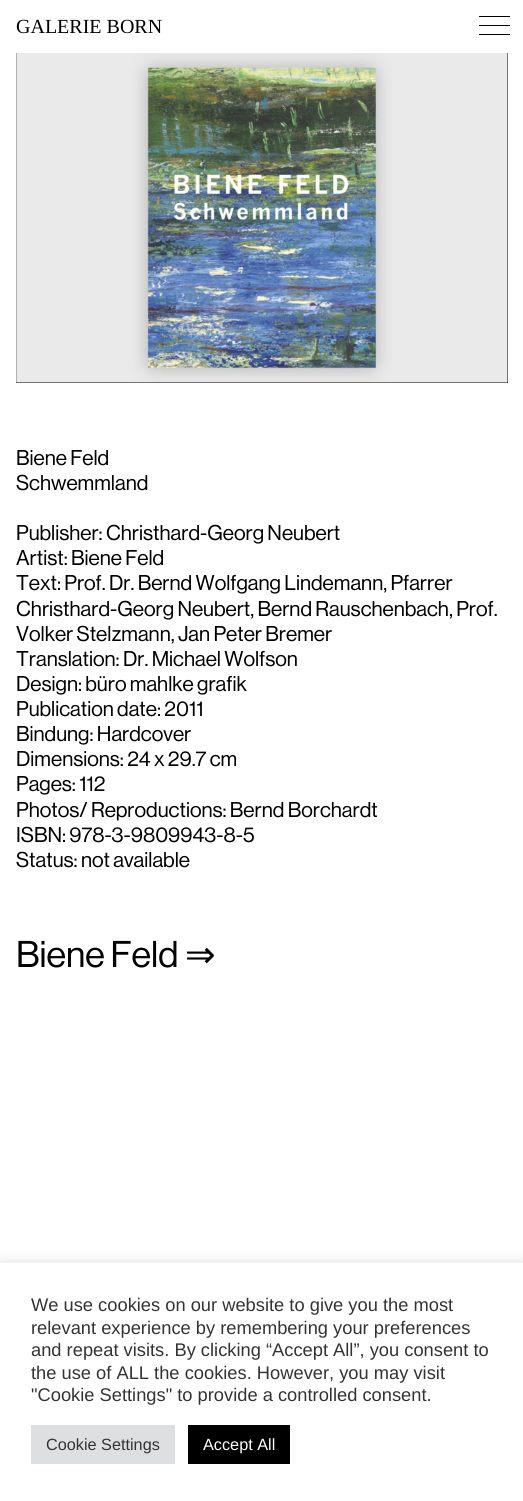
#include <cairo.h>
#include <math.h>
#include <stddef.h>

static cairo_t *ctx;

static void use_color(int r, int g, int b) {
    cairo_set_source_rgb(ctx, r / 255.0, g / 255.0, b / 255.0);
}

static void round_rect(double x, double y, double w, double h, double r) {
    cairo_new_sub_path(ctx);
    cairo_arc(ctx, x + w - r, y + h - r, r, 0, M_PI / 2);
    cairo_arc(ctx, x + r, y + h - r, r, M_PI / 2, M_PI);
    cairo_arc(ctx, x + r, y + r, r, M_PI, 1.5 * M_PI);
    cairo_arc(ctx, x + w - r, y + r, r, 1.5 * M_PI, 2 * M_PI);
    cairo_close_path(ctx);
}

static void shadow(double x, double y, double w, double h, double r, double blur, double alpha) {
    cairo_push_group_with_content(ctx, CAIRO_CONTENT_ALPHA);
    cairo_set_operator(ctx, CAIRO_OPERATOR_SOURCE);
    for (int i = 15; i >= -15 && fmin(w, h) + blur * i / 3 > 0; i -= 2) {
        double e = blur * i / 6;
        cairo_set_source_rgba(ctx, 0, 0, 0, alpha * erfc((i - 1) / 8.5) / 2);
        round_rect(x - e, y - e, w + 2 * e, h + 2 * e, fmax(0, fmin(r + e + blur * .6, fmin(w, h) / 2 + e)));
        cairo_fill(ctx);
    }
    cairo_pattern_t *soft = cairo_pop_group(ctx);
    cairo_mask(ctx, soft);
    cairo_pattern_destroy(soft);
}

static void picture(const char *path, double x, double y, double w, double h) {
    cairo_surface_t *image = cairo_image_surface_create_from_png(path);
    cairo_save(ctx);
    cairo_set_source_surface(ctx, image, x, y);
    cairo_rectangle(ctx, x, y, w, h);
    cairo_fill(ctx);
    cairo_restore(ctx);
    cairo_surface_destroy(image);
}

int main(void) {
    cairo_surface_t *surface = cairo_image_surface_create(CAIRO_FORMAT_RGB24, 523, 1501);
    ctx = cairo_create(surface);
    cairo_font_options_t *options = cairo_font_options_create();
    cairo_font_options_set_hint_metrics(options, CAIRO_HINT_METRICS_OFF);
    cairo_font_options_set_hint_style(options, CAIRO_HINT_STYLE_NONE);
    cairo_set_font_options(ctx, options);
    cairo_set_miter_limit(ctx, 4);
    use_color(255, 255, 255);
    cairo_paint(ctx);
    cairo_select_font_face(ctx, "Liberation Serif", CAIRO_FONT_SLANT_NORMAL, CAIRO_FONT_WEIGHT_NORMAL);
    cairo_set_font_size(ctx, 20);
    use_color(0, 0, 0);
    cairo_move_to(ctx, 16, 33);
    cairo_show_text(ctx, "GALERIE BORN");
    cairo_rectangle(ctx, 479, 25, 31, 1);
    cairo_fill(ctx);
    cairo_rectangle(ctx, 479, 16, 31, 1);
    cairo_fill(ctx);
    cairo_rectangle(ctx, 479, 34, 31, 1);
    cairo_fill(ctx);
    cairo_rectangle(ctx, 16, 53, 492, 330);
    cairo_fill(ctx);
    picture("img1.png", 16, 52, 492, 331);
    cairo_set_source_rgba(ctx, 1, 1, 1, 0.75);
    cairo_rectangle(ctx, 16, 52, 491, 1);
    cairo_fill(ctx);
    cairo_select_font_face(ctx, "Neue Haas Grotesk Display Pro", CAIRO_FONT_SLANT_NORMAL, CAIRO_FONT_WEIGHT_NORMAL);
    cairo_set_font_size(ctx, 20.95);
    use_color(0, 0, 0);
    cairo_move_to(ctx, 16, 465);
    cairo_show_text(ctx, "Biene Feld");
    cairo_move_to(ctx, 16, 490);
    cairo_show_text(ctx, "Schwemmland");
    cairo_move_to(ctx, 16, 540);
    cairo_show_text(ctx, "Publisher: Christhard-Georg Neubert");
    cairo_move_to(ctx, 16, 565);
    cairo_show_text(ctx, "Artist: Biene Feld");
    cairo_move_to(ctx, 16, 590);
    cairo_show_text(ctx, "Text: Prof. Dr. Bernd Wolfgang Lindemann, Pfarrer");
    cairo_move_to(ctx, 16, 616);
    cairo_show_text(ctx, "Christhard-Georg Neubert, Bernd Rauschenbach, Prof.");
    cairo_move_to(ctx, 16, 641);
    cairo_show_text(ctx, "Volker Stelzmann, Jan Peter Bremer");
    cairo_move_to(ctx, 16, 666);
    cairo_show_text(ctx, "Translation: Dr. Michael Wolfson");
    cairo_move_to(ctx, 16, 691);
    cairo_show_text(ctx, "Design: büro mahlke grafik");
    cairo_move_to(ctx, 16, 716);
    cairo_show_text(ctx, "Publication date: 2011");
    cairo_move_to(ctx, 16, 741);
    cairo_show_text(ctx, "Bindung: Hardcover");
    cairo_move_to(ctx, 16, 766);
    cairo_show_text(ctx, "Dimensions: 24 x 29.7 cm");
    cairo_move_to(ctx, 16, 791);
    cairo_show_text(ctx, "Pages: 112");
    cairo_move_to(ctx, 16, 817);
    cairo_show_text(ctx, "Photos/ Reproductions: Bernd Borchardt");
    cairo_move_to(ctx, 16, 842);
    cairo_show_text(ctx, "ISBN: 978-3-9809943-8-5");
    cairo_move_to(ctx, 16, 867);
    cairo_show_text(ctx, "Status: not available");
    cairo_set_font_size(ctx, 36.5);
    cairo_move_to(ctx, 16, 967);
    cairo_show_text(ctx, "Biene Feld");
    cairo_select_font_face(ctx, "DejaVu Sans", CAIRO_FONT_SLANT_NORMAL, CAIRO_FONT_WEIGHT_NORMAL);
    cairo_move_to(ctx, 185, 967);
    cairo_show_text(ctx, "⇒");
    use_color(172, 171, 171);
    shadow(0, 1261, 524, 239, 0, 6, 0.3);
    use_color(255, 255, 255);
    cairo_rectangle(ctx, 0, 1263, 523, 238);
    cairo_fill(ctx);
    cairo_select_font_face(ctx, "Liberation Sans", CAIRO_FONT_SLANT_NORMAL, CAIRO_FONT_WEIGHT_NORMAL);
    cairo_set_font_size(ctx, 18.3);
    use_color(51, 51, 51);
    cairo_move_to(ctx, 31, 1311);
    cairo_show_text(ctx, "We use cookies on our website to give you the most");
    cairo_move_to(ctx, 31, 1334);
    cairo_show_text(ctx, "relevant experience by remembering your preferences");
    cairo_move_to(ctx, 31, 1356);
    cairo_show_text(ctx, "and repeat visits. By clicking “Accept All”, you consent to");
    cairo_move_to(ctx, 31, 1379);
    cairo_show_text(ctx, "the use of ALL the cookies. However, you may visit");
    cairo_move_to(ctx, 31, 1401);
    cairo_show_text(ctx, "\"Cookie Settings\" to provide a controlled consent.");
    use_color(222, 223, 224);
    cairo_rectangle(ctx, 31, 1425, 144, 39);
    cairo_fill(ctx);
    cairo_set_font_size(ctx, 16.25);
    use_color(51, 51, 51);
    cairo_move_to(ctx, 46, 1450);
    cairo_show_text(ctx, "Cookie Settings");
    use_color(0, 0, 0);
    cairo_rectangle(ctx, 188, 1425, 102, 39);
    cairo_fill(ctx);
    use_color(255, 255, 255);
    cairo_move_to(ctx, 203, 1450);
    cairo_show_text(ctx, "Accept All");
    cairo_surface_write_to_png(surface, "result.png");
    cairo_font_options_destroy(options);
    cairo_destroy(ctx);
    cairo_surface_destroy(surface);
    return 0;
}
